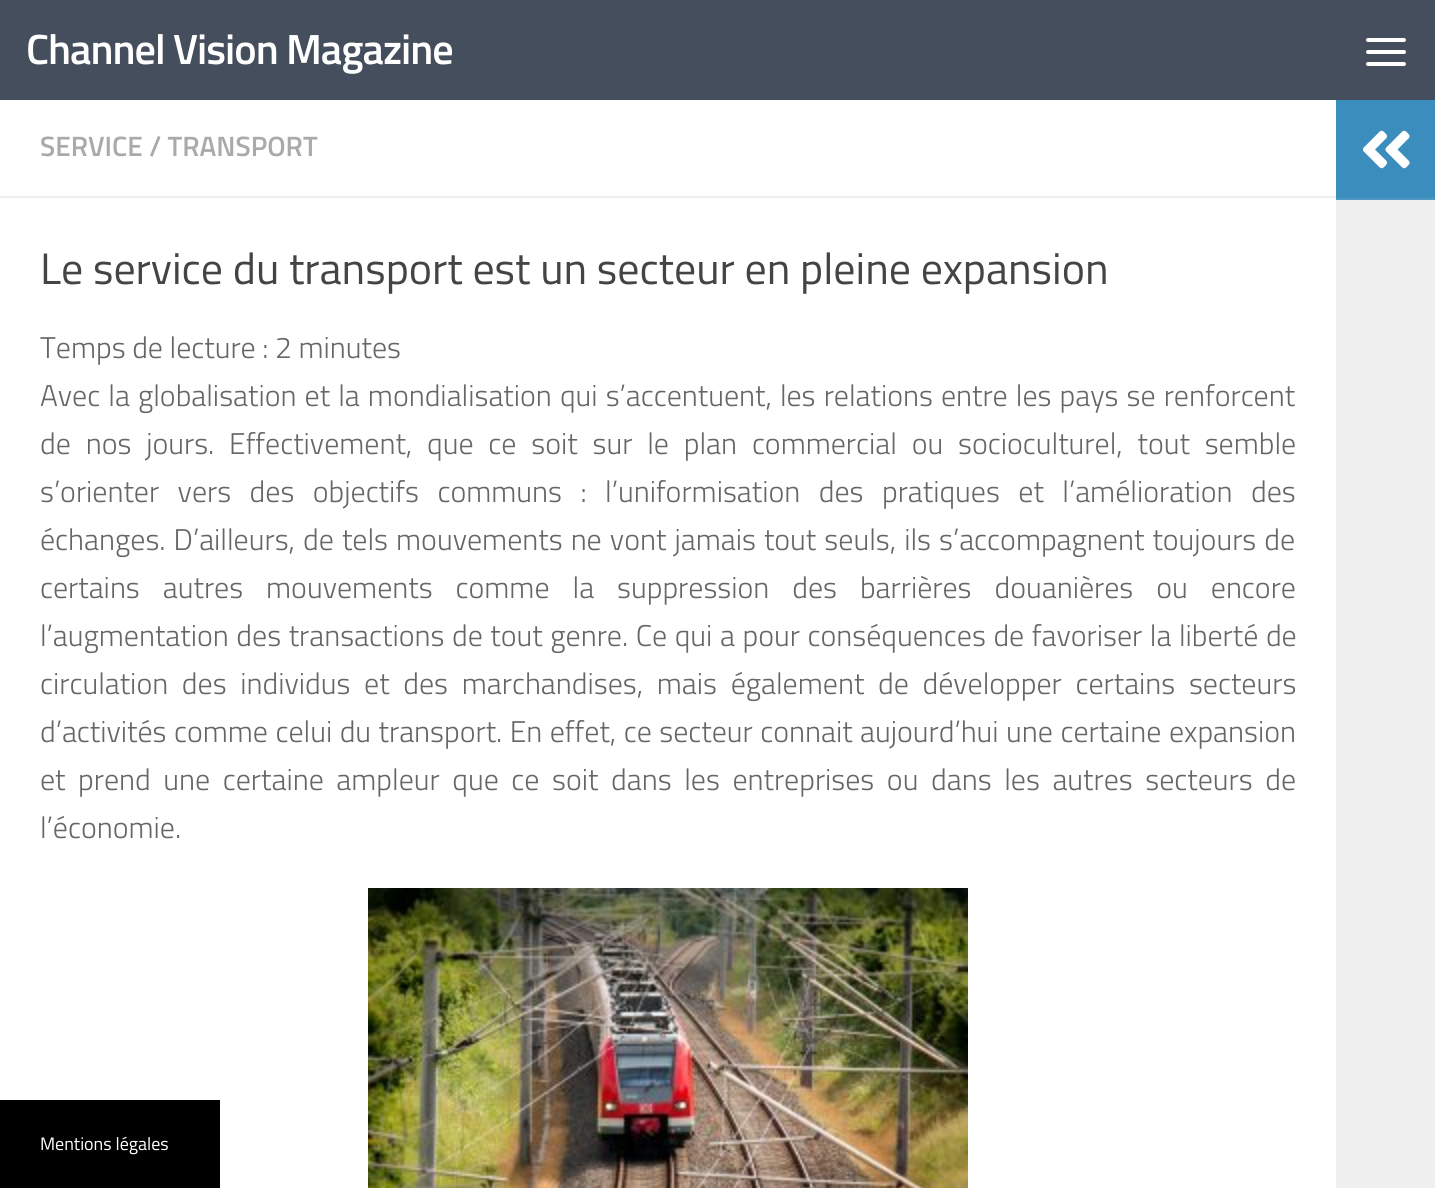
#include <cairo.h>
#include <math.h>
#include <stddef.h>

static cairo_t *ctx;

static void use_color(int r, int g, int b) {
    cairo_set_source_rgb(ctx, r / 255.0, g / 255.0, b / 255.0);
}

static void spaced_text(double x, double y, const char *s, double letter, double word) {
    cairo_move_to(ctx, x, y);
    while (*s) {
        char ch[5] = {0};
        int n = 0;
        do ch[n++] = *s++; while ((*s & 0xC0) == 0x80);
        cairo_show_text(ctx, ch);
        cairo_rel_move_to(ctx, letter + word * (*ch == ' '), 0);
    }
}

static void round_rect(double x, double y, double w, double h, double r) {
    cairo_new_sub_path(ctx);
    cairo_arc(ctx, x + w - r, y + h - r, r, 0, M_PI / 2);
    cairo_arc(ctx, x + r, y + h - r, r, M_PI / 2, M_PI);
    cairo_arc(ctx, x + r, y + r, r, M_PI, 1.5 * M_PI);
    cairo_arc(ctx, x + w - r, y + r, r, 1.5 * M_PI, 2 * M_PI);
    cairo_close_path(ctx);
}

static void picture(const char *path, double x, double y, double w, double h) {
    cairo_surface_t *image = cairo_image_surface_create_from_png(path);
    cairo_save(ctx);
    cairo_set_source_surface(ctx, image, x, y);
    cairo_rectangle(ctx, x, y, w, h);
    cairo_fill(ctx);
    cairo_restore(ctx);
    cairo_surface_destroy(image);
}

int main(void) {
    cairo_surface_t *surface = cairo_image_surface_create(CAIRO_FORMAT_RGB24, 1435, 1188);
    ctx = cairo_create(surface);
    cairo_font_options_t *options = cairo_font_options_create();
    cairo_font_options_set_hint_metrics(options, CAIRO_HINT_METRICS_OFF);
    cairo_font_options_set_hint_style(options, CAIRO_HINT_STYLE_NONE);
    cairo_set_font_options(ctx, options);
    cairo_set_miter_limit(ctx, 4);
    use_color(255, 255, 255);
    cairo_paint(ctx);
    use_color(69, 78, 92);
    cairo_rectangle(ctx, 0, 0, 1435, 100);
    cairo_fill(ctx);
    cairo_select_font_face(ctx, "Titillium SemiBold", CAIRO_FONT_SLANT_NORMAL, CAIRO_FONT_WEIGHT_NORMAL);
    cairo_set_font_size(ctx, 42.25);
    use_color(255, 255, 255);
    spaced_text(26, 64, "Channel Vision Magazine", -1, 0);
    round_rect(1366, 38, 40, 4, 2);
    cairo_fill(ctx);
    round_rect(1366, 50, 40, 4, 2);
    cairo_fill(ctx);
    round_rect(1366, 62, 40, 4, 2);
    cairo_fill(ctx);
    use_color(238, 238, 238);
    cairo_rectangle(ctx, 0, 196, 1336, 2);
    cairo_fill(ctx);
    cairo_set_font_size(ctx, 28);
    use_color(170, 170, 170);
    cairo_move_to(ctx, 40, 156);
    cairo_show_text(ctx, "SERVICE / TRANSPORT");
    cairo_select_font_face(ctx, "Titillium", CAIRO_FONT_SLANT_NORMAL, CAIRO_FONT_WEIGHT_NORMAL);
    cairo_set_font_size(ctx, 44);
    use_color(68, 68, 68);
    cairo_move_to(ctx, 40, 284);
    cairo_show_text(ctx, "Le service du transport est un secteur en pleine expansion");
    cairo_select_font_face(ctx, "Titillium Light", CAIRO_FONT_SLANT_NORMAL, CAIRO_FONT_WEIGHT_NORMAL);
    cairo_set_font_size(ctx, 30);
    use_color(102, 102, 102);
    cairo_move_to(ctx, 40, 358);
    cairo_show_text(ctx, "Temps de lecture : 2 minutes");
    spaced_text(40, 406, "Avec la globalisation et la mondialisation qui s’accentuent, les relations entre les pays se renforcent", 0, 1.5);
    spaced_text(40, 454, "de nos jours. Effectivement, que ce soit sur le plan commercial ou socioculturel, tout semble", 0, 8.25);
    spaced_text(40, 502, "s’orienter vers des objectifs communs : l’uniformisation des pratiques et l’amélioration des", 0, 11.9);
    spaced_text(40, 550, "échanges. D’ailleurs, de tels mouvements ne vont jamais tout seuls, ils s’accompagnent toujours de", 0, 1.5);
    spaced_text(40, 598, "certains autres mouvements comme la suppression des barrières douanières ou encore", 0, 16.4);
    spaced_text(40, 646, "l’augmentation des transactions de tout genre. Ce qui a pour conséquences de favoriser la liberté de", 0, 1);
    spaced_text(40, 694, "circulation des individus et des marchandises, mais également de développer certains secteurs", 0, 7.1);
    spaced_text(40, 742, "d’activités comme celui du transport. En effet, ce secteur connait aujourd’hui une certaine expansion", 0, 0.9);
    spaced_text(40, 790, "et prend une certaine ampleur que ce soit dans les entreprises ou dans les autres secteurs de", 0, 6);
    cairo_move_to(ctx, 40, 838);
    cairo_show_text(ctx, "l’économie.");
    picture("img1.png", 368, 888, 600, 300);
    use_color(59, 141, 189);
    cairo_rectangle(ctx, 1336, 100, 99, 98);
    cairo_fill(ctx);
    use_color(79, 152, 196);
    cairo_rectangle(ctx, 1336, 198, 99, 2);
    cairo_fill(ctx);
    picture("img2.png", 1362, 130, 48, 39);
    use_color(240, 240, 240);
    cairo_rectangle(ctx, 1336, 200, 99, 988);
    cairo_fill(ctx);
    use_color(0, 0, 0);
    cairo_rectangle(ctx, 0, 1100, 220, 88);
    cairo_fill(ctx);
    cairo_select_font_face(ctx, "Titillium", CAIRO_FONT_SLANT_NORMAL, CAIRO_FONT_WEIGHT_NORMAL);
    cairo_set_font_size(ctx, 18);
    use_color(255, 255, 255);
    cairo_move_to(ctx, 40, 1150);
    cairo_show_text(ctx, "Mentions légales");
    cairo_surface_write_to_png(surface, "result.png");
    cairo_font_options_destroy(options);
    cairo_destroy(ctx);
    cairo_surface_destroy(surface);
    return 0;
}
